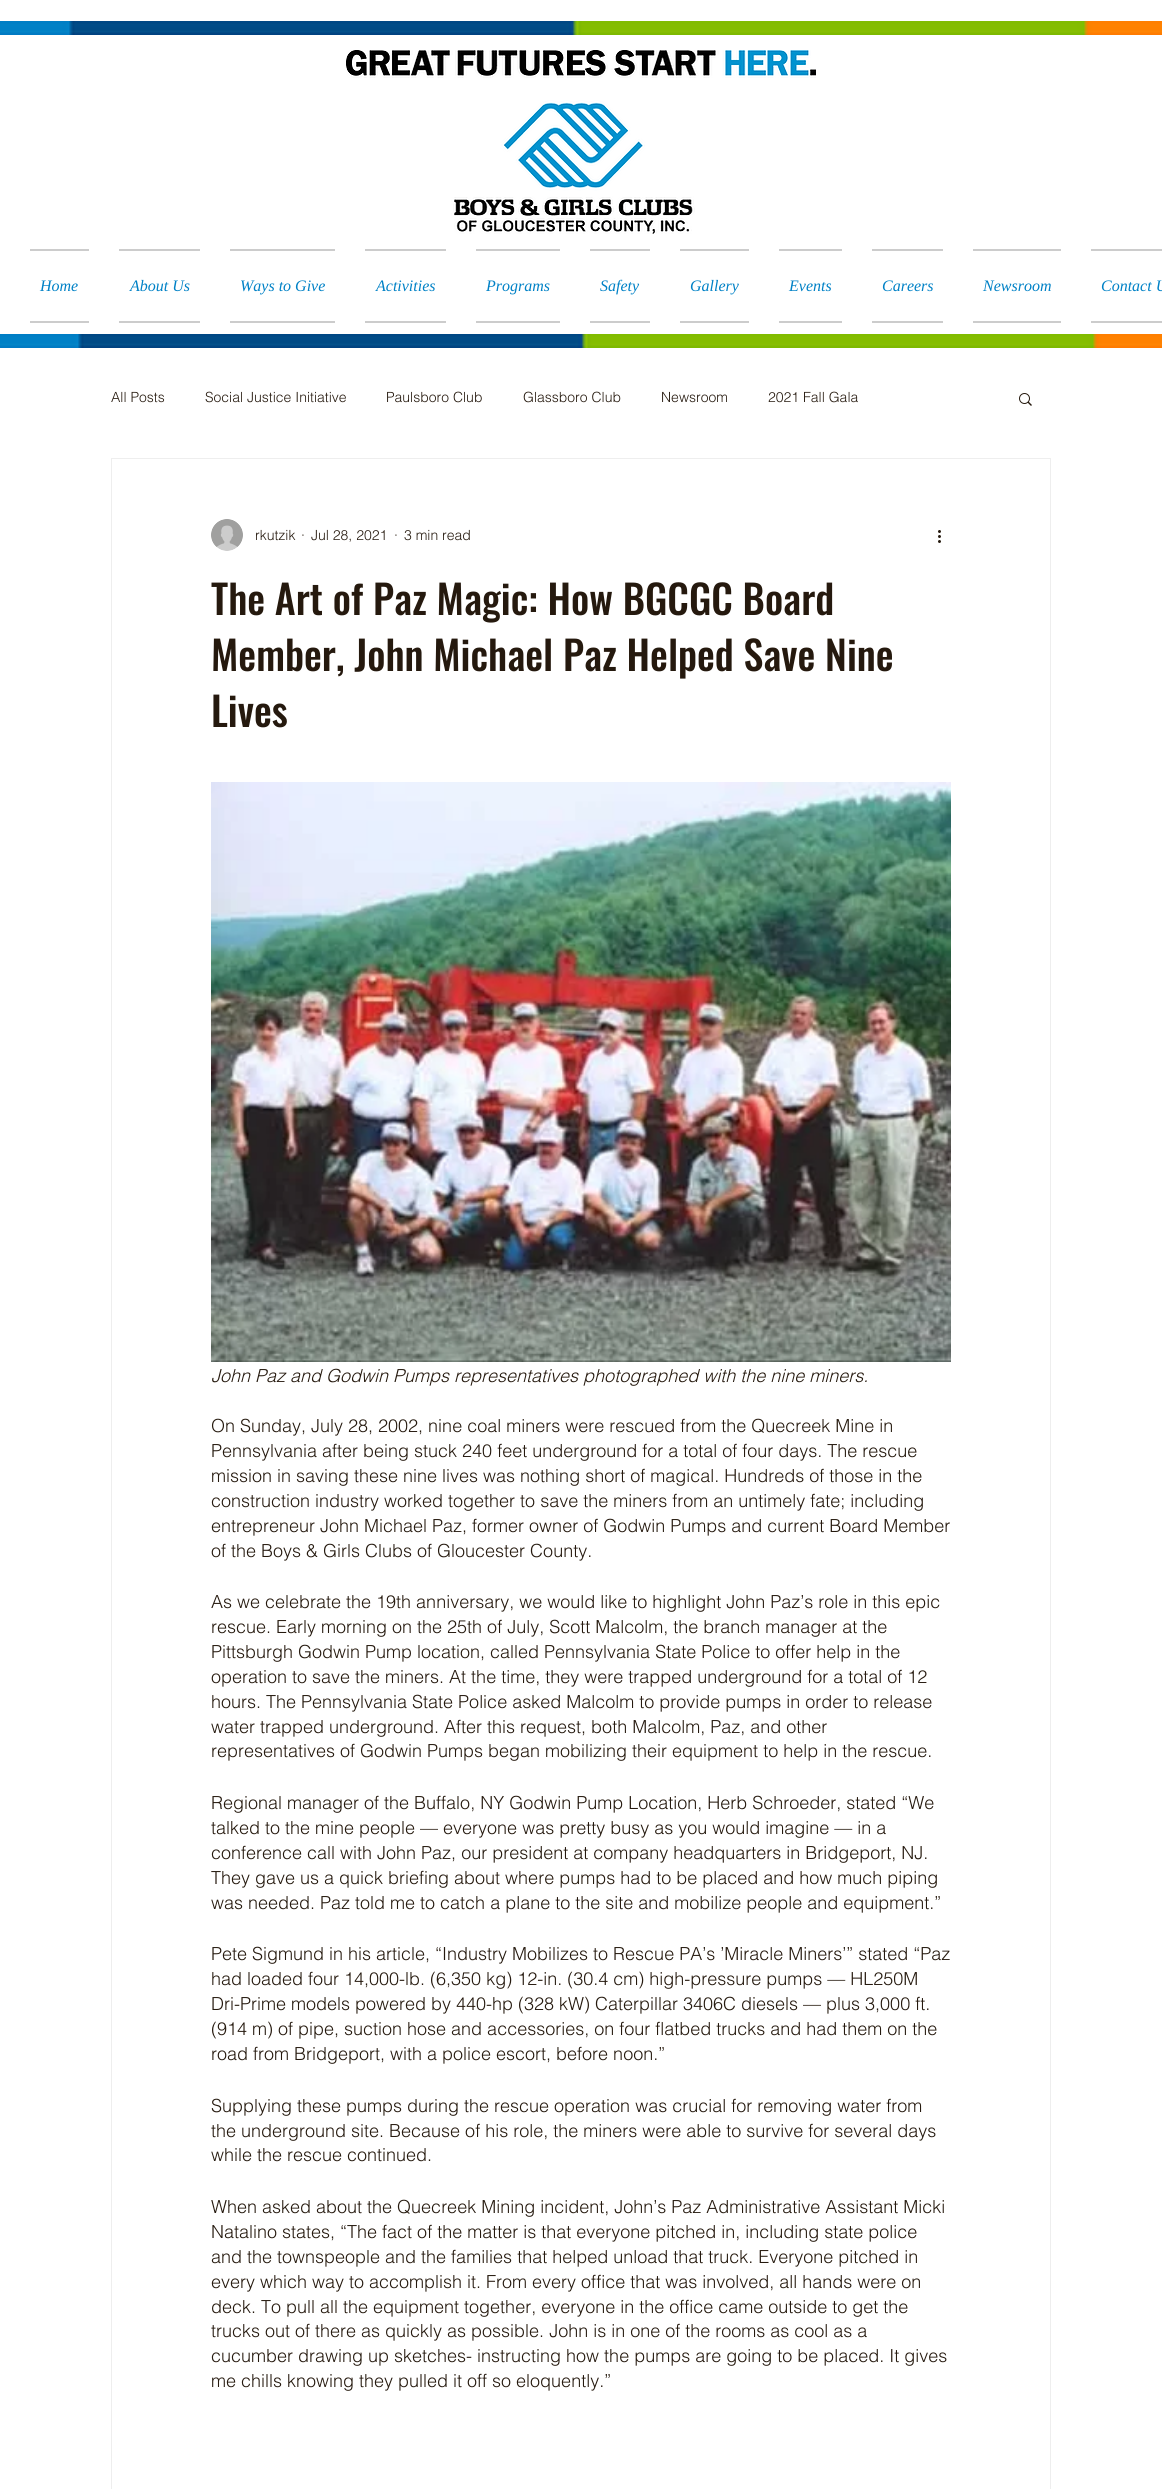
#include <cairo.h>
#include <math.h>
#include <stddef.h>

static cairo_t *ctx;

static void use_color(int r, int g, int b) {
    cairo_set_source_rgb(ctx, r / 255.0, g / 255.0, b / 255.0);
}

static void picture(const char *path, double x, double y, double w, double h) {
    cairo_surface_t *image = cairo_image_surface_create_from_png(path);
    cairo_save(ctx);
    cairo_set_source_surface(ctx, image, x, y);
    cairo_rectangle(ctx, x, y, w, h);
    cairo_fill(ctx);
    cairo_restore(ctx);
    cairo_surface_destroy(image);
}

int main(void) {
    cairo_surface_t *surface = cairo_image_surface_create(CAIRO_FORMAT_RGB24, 1162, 2489);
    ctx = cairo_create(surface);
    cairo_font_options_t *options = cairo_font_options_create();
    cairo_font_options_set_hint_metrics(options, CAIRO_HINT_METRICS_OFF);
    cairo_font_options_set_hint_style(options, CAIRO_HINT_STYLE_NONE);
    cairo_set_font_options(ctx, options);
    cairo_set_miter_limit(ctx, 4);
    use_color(255, 255, 255);
    cairo_paint(ctx);
    picture("img1.png", 0, 21, 1162, 14);
    picture("img2.png", 346, 50, 470, 184);
    use_color(204, 204, 204);
    cairo_rectangle(ctx, 30, 249, 59, 2);
    cairo_fill(ctx);
    cairo_rectangle(ctx, 30, 321, 59, 2);
    cairo_fill(ctx);
    cairo_select_font_face(ctx, "Liberation Serif", CAIRO_FONT_SLANT_ITALIC, CAIRO_FONT_WEIGHT_NORMAL);
    cairo_set_font_size(ctx, 16);
    use_color(0, 129, 198);
    cairo_move_to(ctx, 40, 291);
    cairo_show_text(ctx, "Home");
    use_color(204, 204, 204);
    cairo_rectangle(ctx, 119, 249, 81, 2);
    cairo_fill(ctx);
    cairo_rectangle(ctx, 119, 321, 81, 2);
    cairo_fill(ctx);
    use_color(0, 129, 198);
    cairo_move_to(ctx, 130, 291);
    cairo_show_text(ctx, "About Us");
    use_color(204, 204, 204);
    cairo_rectangle(ctx, 230, 249, 105, 2);
    cairo_fill(ctx);
    cairo_rectangle(ctx, 230, 321, 105, 2);
    cairo_fill(ctx);
    use_color(0, 129, 198);
    cairo_move_to(ctx, 240, 291);
    cairo_show_text(ctx, "Ways to Give");
    use_color(204, 204, 204);
    cairo_rectangle(ctx, 365, 249, 81, 2);
    cairo_fill(ctx);
    cairo_rectangle(ctx, 365, 321, 81, 2);
    cairo_fill(ctx);
    use_color(0, 129, 198);
    cairo_move_to(ctx, 376, 291);
    cairo_show_text(ctx, "Activities");
    use_color(204, 204, 204);
    cairo_rectangle(ctx, 476, 249, 84, 2);
    cairo_fill(ctx);
    cairo_rectangle(ctx, 476, 321, 84, 2);
    cairo_fill(ctx);
    use_color(0, 129, 198);
    cairo_move_to(ctx, 486, 291);
    cairo_show_text(ctx, "Programs");
    use_color(204, 204, 204);
    cairo_rectangle(ctx, 590, 249, 60, 2);
    cairo_fill(ctx);
    cairo_rectangle(ctx, 590, 321, 60, 2);
    cairo_fill(ctx);
    use_color(0, 129, 198);
    cairo_move_to(ctx, 600, 291);
    cairo_show_text(ctx, "Safety");
    use_color(204, 204, 204);
    cairo_rectangle(ctx, 680, 249, 69, 2);
    cairo_fill(ctx);
    cairo_rectangle(ctx, 680, 321, 69, 2);
    cairo_fill(ctx);
    use_color(0, 129, 198);
    cairo_move_to(ctx, 690, 291);
    cairo_show_text(ctx, "Gallery");
    use_color(204, 204, 204);
    cairo_rectangle(ctx, 779, 249, 63, 2);
    cairo_fill(ctx);
    cairo_rectangle(ctx, 779, 321, 63, 2);
    cairo_fill(ctx);
    use_color(0, 129, 198);
    cairo_move_to(ctx, 789, 291);
    cairo_show_text(ctx, "Events");
    use_color(204, 204, 204);
    cairo_rectangle(ctx, 872, 249, 71, 2);
    cairo_fill(ctx);
    cairo_rectangle(ctx, 872, 321, 71, 2);
    cairo_fill(ctx);
    use_color(0, 129, 198);
    cairo_move_to(ctx, 882, 291);
    cairo_show_text(ctx, "Careers");
    use_color(204, 204, 204);
    cairo_rectangle(ctx, 973, 249, 88, 2);
    cairo_fill(ctx);
    cairo_rectangle(ctx, 973, 321, 88, 2);
    cairo_fill(ctx);
    use_color(0, 129, 198);
    cairo_move_to(ctx, 983, 291);
    cairo_show_text(ctx, "Newsroom");
    use_color(204, 204, 204);
    cairo_rectangle(ctx, 1091, 249, 71, 2);
    cairo_fill(ctx);
    cairo_rectangle(ctx, 1091, 321, 71, 2);
    cairo_fill(ctx);
    use_color(0, 129, 198);
    cairo_move_to(ctx, 1101, 291);
    cairo_show_text(ctx, "Contact U");
    picture("img3.png", 0, 334, 1162, 14);
    cairo_select_font_face(ctx, "helvetica Light", CAIRO_FONT_SLANT_NORMAL, CAIRO_FONT_WEIGHT_NORMAL);
    cairo_set_font_size(ctx, 14);
    use_color(37, 25, 14);
    cairo_move_to(ctx, 111, 402);
    cairo_show_text(ctx, "All Posts");
    cairo_move_to(ctx, 205, 402);
    cairo_show_text(ctx, "Social Justice Initiative");
    cairo_move_to(ctx, 386, 402);
    cairo_show_text(ctx, "Paulsboro Club");
    cairo_move_to(ctx, 523, 402);
    cairo_show_text(ctx, "Glassboro Club");
    cairo_move_to(ctx, 661, 402);
    cairo_show_text(ctx, "Newsroom");
    cairo_move_to(ctx, 768, 402);
    cairo_show_text(ctx, "2021 Fall Gala");
    picture("img4.png", 1019, 393, 13, 13);
    cairo_rectangle(ctx, 111.5, 458.5, 939, 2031);
    use_color(238, 238, 238);
    cairo_set_line_width(ctx, 1);
    cairo_stroke(ctx);
    picture("img5.png", 211, 519, 32, 32);
    use_color(37, 25, 14);
    cairo_move_to(ctx, 255, 540);
    cairo_show_text(ctx, "rkutzik");
    cairo_move_to(ctx, 301, 540);
    cairo_show_text(ctx, "·");
    cairo_move_to(ctx, 311, 540);
    cairo_show_text(ctx, "Jul 28, 2021");
    cairo_move_to(ctx, 394, 540);
    cairo_show_text(ctx, "·");
    cairo_move_to(ctx, 404, 540);
    cairo_show_text(ctx, "3 min read");
    picture("img6.png", 938, 530, 3, 13);
    cairo_select_font_face(ctx, "Oswald Medium", CAIRO_FONT_SLANT_NORMAL, CAIRO_FONT_WEIGHT_NORMAL);
    cairo_set_font_size(ctx, 40);
    cairo_move_to(ctx, 211, 615);
    cairo_show_text(ctx, "The Art of Paz Magic: How BGCGC Board");
    cairo_move_to(ctx, 211, 671);
    cairo_show_text(ctx, "Member, John Michael Paz Helped Save Nine");
    cairo_move_to(ctx, 211, 727);
    cairo_show_text(ctx, "Lives");
    picture("img7.png", 211, 782, 740, 580);
    cairo_select_font_face(ctx, "helvetica Light", CAIRO_FONT_SLANT_ITALIC, CAIRO_FONT_WEIGHT_NORMAL);
    cairo_set_font_size(ctx, 18);
    cairo_move_to(ctx, 211, 1382);
    cairo_show_text(ctx, "John Paz and Godwin Pumps representatives photographed with the nine miners.");
    cairo_select_font_face(ctx, "helvetica Light", CAIRO_FONT_SLANT_NORMAL, CAIRO_FONT_WEIGHT_NORMAL);
    cairo_move_to(ctx, 211, 1432);
    cairo_show_text(ctx, "On Sunday, July 28, 2002, nine coal miners were rescued from the Quecreek Mine in");
    cairo_move_to(ctx, 211, 1457);
    cairo_show_text(ctx, "Pennsylvania after being stuck 240 feet underground for a total of four days. The rescue");
    cairo_move_to(ctx, 211, 1482);
    cairo_show_text(ctx, "mission in saving these nine lives was nothing short of magical. Hundreds of those in the");
    cairo_move_to(ctx, 211, 1507);
    cairo_show_text(ctx, "construction industry worked together to save the miners from an untimely fate; including");
    cairo_move_to(ctx, 211, 1532);
    cairo_show_text(ctx, "entrepreneur John Michael Paz, former owner of Godwin Pumps and current Board Member");
    cairo_move_to(ctx, 211, 1557);
    cairo_show_text(ctx, "of the Boys & Girls Clubs of Gloucester County.");
    cairo_move_to(ctx, 211, 1608);
    cairo_show_text(ctx, "As we celebrate the 19th anniversary, we would like to highlight John Paz’s role in this epic");
    cairo_move_to(ctx, 211, 1633);
    cairo_show_text(ctx, "rescue. Early morning on the 25th of July, Scott Malcolm, the branch manager at the");
    cairo_move_to(ctx, 211, 1658);
    cairo_show_text(ctx, "Pittsburgh Godwin Pump location, called Pennsylvania State Police to offer help in the");
    cairo_move_to(ctx, 211, 1683);
    cairo_show_text(ctx, "operation to save the miners. At the time, they were trapped underground for a total of 12");
    cairo_move_to(ctx, 211, 1708);
    cairo_show_text(ctx, "hours. The Pennsylvania State Police asked Malcolm to provide pumps in order to release");
    cairo_move_to(ctx, 211, 1733);
    cairo_show_text(ctx, "water trapped underground. After this request, both Malcolm, Paz, and other");
    cairo_move_to(ctx, 211, 1757);
    cairo_show_text(ctx, "representatives of Godwin Pumps began mobilizing their equipment to help in the rescue.");
    cairo_move_to(ctx, 211, 1809);
    cairo_show_text(ctx, "Regional manager of the Buffalo, NY Godwin Pump Location, Herb Schroeder, stated “We");
    cairo_move_to(ctx, 211, 1834);
    cairo_show_text(ctx, "talked to the mine people — everyone was pretty busy as you would imagine — in a");
    cairo_move_to(ctx, 211, 1859);
    cairo_show_text(ctx, "conference call with John Paz, our president at company headquarters in Bridgeport, NJ.");
    cairo_move_to(ctx, 211, 1884);
    cairo_show_text(ctx, "They gave us a quick briefing about where pumps had to be placed and how much piping");
    cairo_move_to(ctx, 211, 1909);
    cairo_show_text(ctx, "was needed. Paz told me to catch a plane to the site and mobilize people and equipment.”");
    cairo_move_to(ctx, 211, 1960);
    cairo_show_text(ctx, "Pete Sigmund in his article, “Industry Mobilizes to Rescue PA’s ’Miracle Miners’” stated “Paz");
    cairo_move_to(ctx, 211, 1985);
    cairo_show_text(ctx, "had loaded four 14,000-lb. (6,350 kg) 12-in. (30.4 cm) high-pressure pumps — HL250M");
    cairo_move_to(ctx, 211, 2010);
    cairo_show_text(ctx, "Dri-Prime models powered by 440-hp (328 kW) Caterpillar 3406C diesels — plus 3,000 ft.");
    cairo_move_to(ctx, 211, 2035);
    cairo_show_text(ctx, "(914 m) of pipe, suction hose and accessories, on four flatbed trucks and had them on the");
    cairo_move_to(ctx, 211, 2060);
    cairo_show_text(ctx, "road from Bridgeport, with a police escort, before noon.”");
    cairo_move_to(ctx, 211, 2112);
    cairo_show_text(ctx, "Supplying these pumps during the rescue operation was crucial for removing water from");
    cairo_move_to(ctx, 211, 2137);
    cairo_show_text(ctx, "the underground site. Because of his role, the miners were able to survive for several days");
    cairo_move_to(ctx, 211, 2161);
    cairo_show_text(ctx, "while the rescue continued.");
    cairo_move_to(ctx, 211, 2213);
    cairo_show_text(ctx, "When asked about the Quecreek Mining incident, John’s Paz Administrative Assistant Micki");
    cairo_move_to(ctx, 211, 2238);
    cairo_show_text(ctx, "Natalino states, “The fact of the matter is that everyone pitched in, including state police");
    cairo_move_to(ctx, 211, 2263);
    cairo_show_text(ctx, "and the townspeople and the families that helped unload that truck. Everyone pitched in");
    cairo_move_to(ctx, 211, 2288);
    cairo_show_text(ctx, "every which way to accomplish it. From every office that was involved, all hands were on");
    cairo_move_to(ctx, 211, 2313);
    cairo_show_text(ctx, "deck. To pull all the equipment together, everyone in the office came outside to get the");
    cairo_move_to(ctx, 211, 2337);
    cairo_show_text(ctx, "trucks out of there as quickly as possible. John is in one of the rooms as cool as a");
    cairo_move_to(ctx, 211, 2362);
    cairo_show_text(ctx, "cucumber drawing up sketches- instructing how the pumps are going to be placed. It gives");
    cairo_move_to(ctx, 211, 2387);
    cairo_show_text(ctx, "me chills knowing they pulled it off so eloquently.”");
    cairo_surface_write_to_png(surface, "result.png");
    cairo_font_options_destroy(options);
    cairo_destroy(ctx);
    cairo_surface_destroy(surface);
    return 0;
}
